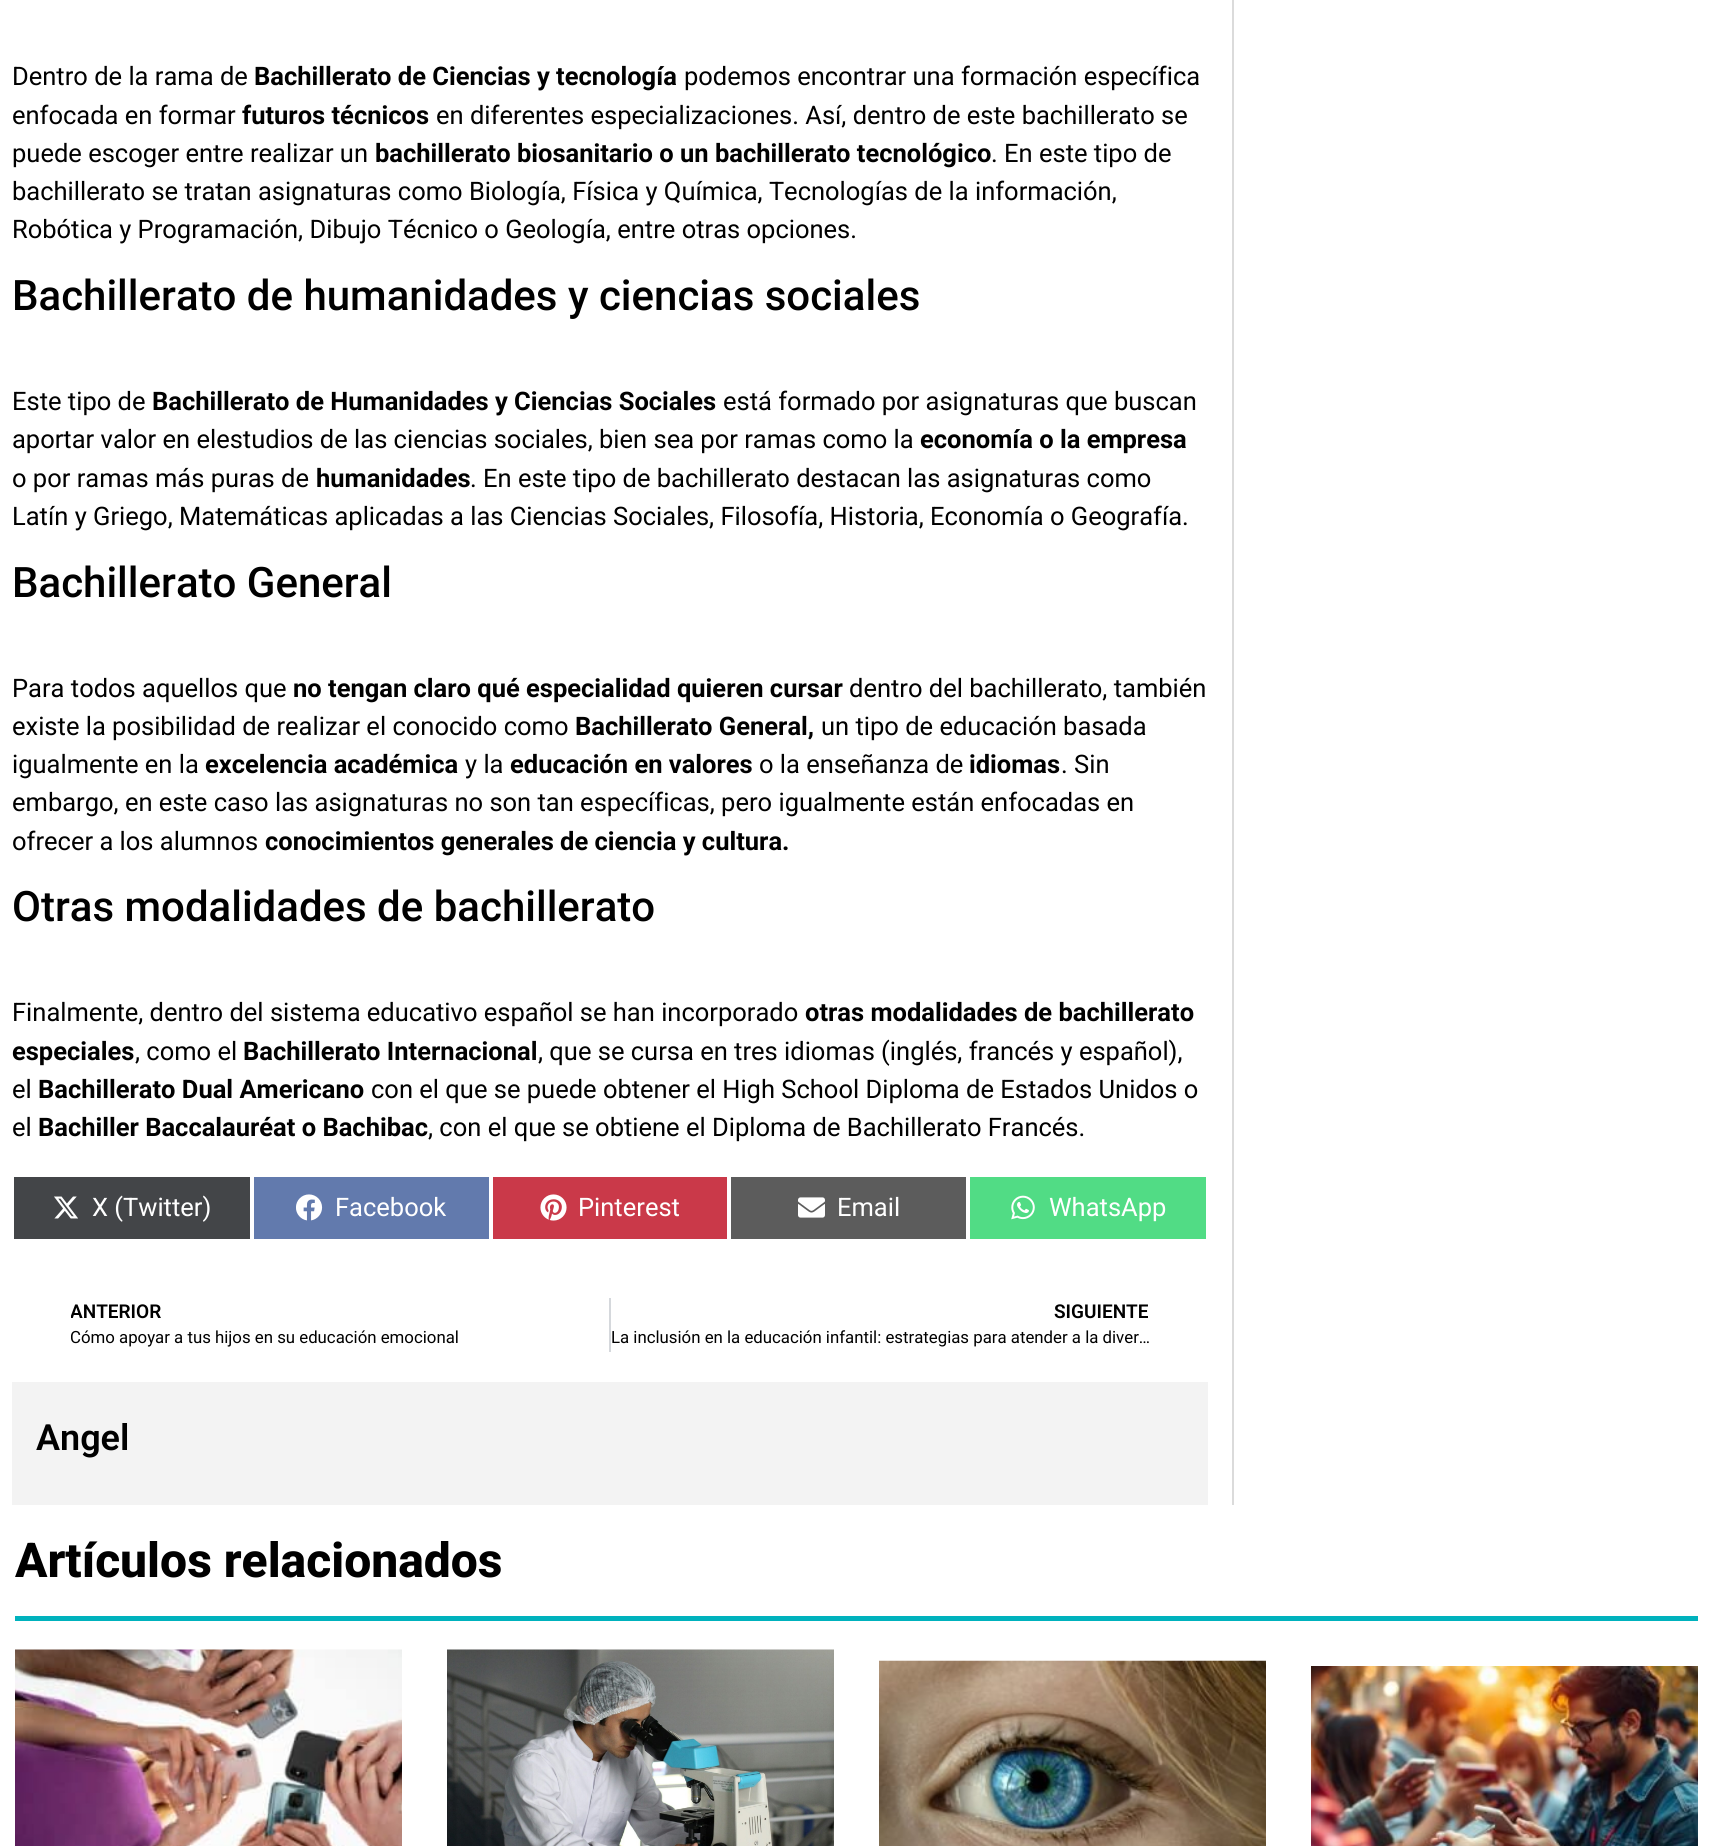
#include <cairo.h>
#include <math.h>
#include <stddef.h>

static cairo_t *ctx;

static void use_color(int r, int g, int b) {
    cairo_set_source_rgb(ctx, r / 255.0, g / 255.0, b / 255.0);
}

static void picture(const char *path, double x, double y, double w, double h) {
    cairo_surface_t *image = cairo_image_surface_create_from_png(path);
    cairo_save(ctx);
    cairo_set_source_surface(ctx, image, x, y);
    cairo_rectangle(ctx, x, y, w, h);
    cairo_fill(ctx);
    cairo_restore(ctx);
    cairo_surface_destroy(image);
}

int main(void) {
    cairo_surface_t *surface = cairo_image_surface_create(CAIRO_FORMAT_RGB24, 1713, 1846);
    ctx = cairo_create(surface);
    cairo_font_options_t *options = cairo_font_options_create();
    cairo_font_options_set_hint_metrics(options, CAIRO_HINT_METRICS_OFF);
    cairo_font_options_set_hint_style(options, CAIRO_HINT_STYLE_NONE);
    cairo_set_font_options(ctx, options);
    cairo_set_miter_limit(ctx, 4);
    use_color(255, 255, 255);
    cairo_paint(ctx);
    use_color(219, 219, 219);
    cairo_rectangle(ctx, 1232, 0, 2, 1505);
    cairo_fill(ctx);
    cairo_select_font_face(ctx, "Roboto", CAIRO_FONT_SLANT_NORMAL, CAIRO_FONT_WEIGHT_NORMAL);
    cairo_set_font_size(ctx, 25.5);
    use_color(0, 0, 0);
    cairo_move_to(ctx, 12, 85);
    cairo_show_text(ctx, "Dentro de la rama de");
    cairo_select_font_face(ctx, "Roboto", CAIRO_FONT_SLANT_NORMAL, CAIRO_FONT_WEIGHT_BOLD);
    cairo_move_to(ctx, 254, 85);
    cairo_show_text(ctx, "Bachillerato de Ciencias y tecnología");
    cairo_select_font_face(ctx, "Roboto", CAIRO_FONT_SLANT_NORMAL, CAIRO_FONT_WEIGHT_NORMAL);
    cairo_move_to(ctx, 684, 85);
    cairo_show_text(ctx, "podemos encontrar una formación específica");
    cairo_move_to(ctx, 12, 124);
    cairo_show_text(ctx, "enfocada en formar");
    cairo_select_font_face(ctx, "Roboto", CAIRO_FONT_SLANT_NORMAL, CAIRO_FONT_WEIGHT_BOLD);
    cairo_move_to(ctx, 242, 124);
    cairo_show_text(ctx, "futuros técnicos");
    cairo_select_font_face(ctx, "Roboto", CAIRO_FONT_SLANT_NORMAL, CAIRO_FONT_WEIGHT_NORMAL);
    cairo_move_to(ctx, 436, 124);
    cairo_show_text(ctx, "en diferentes especializaciones. Así, dentro de este bachillerato se");
    cairo_move_to(ctx, 12, 162);
    cairo_show_text(ctx, "puede escoger entre realizar un");
    cairo_select_font_face(ctx, "Roboto", CAIRO_FONT_SLANT_NORMAL, CAIRO_FONT_WEIGHT_BOLD);
    cairo_move_to(ctx, 375, 162);
    cairo_show_text(ctx, "bachillerato biosanitario o un bachillerato tecnológico");
    cairo_select_font_face(ctx, "Roboto", CAIRO_FONT_SLANT_NORMAL, CAIRO_FONT_WEIGHT_NORMAL);
    cairo_move_to(ctx, 991, 162);
    cairo_show_text(ctx, ". En este tipo de");
    cairo_move_to(ctx, 12, 200);
    cairo_show_text(ctx, "bachillerato se tratan asignaturas como Biología, Física y Química, Tecnologías de la información,");
    cairo_move_to(ctx, 12, 238);
    cairo_show_text(ctx, "Robótica y Programación, Dibujo Técnico o Geología, entre otras opciones.");
    cairo_select_font_face(ctx, "Roboto Medium", CAIRO_FONT_SLANT_NORMAL, CAIRO_FONT_WEIGHT_NORMAL);
    cairo_set_font_size(ctx, 42);
    cairo_move_to(ctx, 12, 310);
    cairo_show_text(ctx, "Bachillerato de humanidades y ciencias sociales");
    cairo_select_font_face(ctx, "Roboto", CAIRO_FONT_SLANT_NORMAL, CAIRO_FONT_WEIGHT_NORMAL);
    cairo_set_font_size(ctx, 25.5);
    cairo_move_to(ctx, 12, 410);
    cairo_show_text(ctx, "Este tipo de");
    cairo_select_font_face(ctx, "Roboto", CAIRO_FONT_SLANT_NORMAL, CAIRO_FONT_WEIGHT_BOLD);
    cairo_move_to(ctx, 152, 410);
    cairo_show_text(ctx, "Bachillerato de Humanidades y Ciencias Sociales");
    cairo_select_font_face(ctx, "Roboto", CAIRO_FONT_SLANT_NORMAL, CAIRO_FONT_WEIGHT_NORMAL);
    cairo_move_to(ctx, 723, 410);
    cairo_show_text(ctx, "está formado por asignaturas que buscan");
    cairo_move_to(ctx, 12, 448);
    cairo_show_text(ctx, "aportar valor en elestudios de las ciencias sociales, bien sea por ramas como la");
    cairo_select_font_face(ctx, "Roboto", CAIRO_FONT_SLANT_NORMAL, CAIRO_FONT_WEIGHT_BOLD);
    cairo_move_to(ctx, 920, 448);
    cairo_show_text(ctx, "economía o la empresa");
    cairo_select_font_face(ctx, "Roboto", CAIRO_FONT_SLANT_NORMAL, CAIRO_FONT_WEIGHT_NORMAL);
    cairo_move_to(ctx, 12, 487);
    cairo_show_text(ctx, "o por ramas más puras de");
    cairo_select_font_face(ctx, "Roboto", CAIRO_FONT_SLANT_NORMAL, CAIRO_FONT_WEIGHT_BOLD);
    cairo_move_to(ctx, 316, 487);
    cairo_show_text(ctx, "humanidades");
    cairo_select_font_face(ctx, "Roboto", CAIRO_FONT_SLANT_NORMAL, CAIRO_FONT_WEIGHT_NORMAL);
    cairo_move_to(ctx, 470, 487);
    cairo_show_text(ctx, ". En este tipo de bachillerato destacan las asignaturas como");
    cairo_move_to(ctx, 12, 525);
    cairo_show_text(ctx, "Latín y Griego, Matemáticas aplicadas a las Ciencias Sociales, Filosofía, Historia, Economía o Geografía.");
    cairo_select_font_face(ctx, "Roboto Medium", CAIRO_FONT_SLANT_NORMAL, CAIRO_FONT_WEIGHT_NORMAL);
    cairo_set_font_size(ctx, 42);
    cairo_move_to(ctx, 12, 597);
    cairo_show_text(ctx, "Bachillerato General");
    cairo_select_font_face(ctx, "Roboto", CAIRO_FONT_SLANT_NORMAL, CAIRO_FONT_WEIGHT_NORMAL);
    cairo_set_font_size(ctx, 25.5);
    cairo_move_to(ctx, 12, 697);
    cairo_show_text(ctx, "Para todos aquellos que");
    cairo_select_font_face(ctx, "Roboto", CAIRO_FONT_SLANT_NORMAL, CAIRO_FONT_WEIGHT_BOLD);
    cairo_move_to(ctx, 293, 697);
    cairo_show_text(ctx, "no tengan claro qué especialidad quieren cursar");
    cairo_select_font_face(ctx, "Roboto", CAIRO_FONT_SLANT_NORMAL, CAIRO_FONT_WEIGHT_NORMAL);
    cairo_move_to(ctx, 849, 697);
    cairo_show_text(ctx, "dentro del bachillerato, también");
    cairo_move_to(ctx, 12, 735);
    cairo_show_text(ctx, "existe la posibilidad de realizar el conocido como");
    cairo_select_font_face(ctx, "Roboto", CAIRO_FONT_SLANT_NORMAL, CAIRO_FONT_WEIGHT_BOLD);
    cairo_move_to(ctx, 575, 735);
    cairo_show_text(ctx, "Bachillerato General,");
    cairo_select_font_face(ctx, "Roboto", CAIRO_FONT_SLANT_NORMAL, CAIRO_FONT_WEIGHT_NORMAL);
    cairo_move_to(ctx, 821, 735);
    cairo_show_text(ctx, "un tipo de educación basada");
    cairo_move_to(ctx, 12, 773);
    cairo_show_text(ctx, "igualmente en la");
    cairo_select_font_face(ctx, "Roboto", CAIRO_FONT_SLANT_NORMAL, CAIRO_FONT_WEIGHT_BOLD);
    cairo_move_to(ctx, 205, 773);
    cairo_show_text(ctx, "excelencia académica");
    cairo_select_font_face(ctx, "Roboto", CAIRO_FONT_SLANT_NORMAL, CAIRO_FONT_WEIGHT_NORMAL);
    cairo_move_to(ctx, 465, 773);
    cairo_show_text(ctx, "y la");
    cairo_select_font_face(ctx, "Roboto", CAIRO_FONT_SLANT_NORMAL, CAIRO_FONT_WEIGHT_BOLD);
    cairo_move_to(ctx, 510, 773);
    cairo_show_text(ctx, "educación en valores");
    cairo_select_font_face(ctx, "Roboto", CAIRO_FONT_SLANT_NORMAL, CAIRO_FONT_WEIGHT_NORMAL);
    cairo_move_to(ctx, 759, 773);
    cairo_show_text(ctx, "o la enseñanza de");
    cairo_select_font_face(ctx, "Roboto", CAIRO_FONT_SLANT_NORMAL, CAIRO_FONT_WEIGHT_BOLD);
    cairo_move_to(ctx, 969, 773);
    cairo_show_text(ctx, "idiomas");
    cairo_select_font_face(ctx, "Roboto", CAIRO_FONT_SLANT_NORMAL, CAIRO_FONT_WEIGHT_NORMAL);
    cairo_move_to(ctx, 1061, 773);
    cairo_show_text(ctx, ". Sin");
    cairo_move_to(ctx, 12, 811);
    cairo_show_text(ctx, "embargo, en este caso las asignaturas no son tan específicas, pero igualmente están enfocadas en");
    cairo_move_to(ctx, 12, 850);
    cairo_show_text(ctx, "ofrecer a los alumnos");
    cairo_select_font_face(ctx, "Roboto", CAIRO_FONT_SLANT_NORMAL, CAIRO_FONT_WEIGHT_BOLD);
    cairo_move_to(ctx, 265, 850);
    cairo_show_text(ctx, "conocimientos generales de ciencia y cultura.");
    cairo_select_font_face(ctx, "Roboto Medium", CAIRO_FONT_SLANT_NORMAL, CAIRO_FONT_WEIGHT_NORMAL);
    cairo_set_font_size(ctx, 42);
    cairo_move_to(ctx, 12, 921);
    cairo_show_text(ctx, "Otras modalidades de bachillerato");
    cairo_select_font_face(ctx, "Roboto", CAIRO_FONT_SLANT_NORMAL, CAIRO_FONT_WEIGHT_NORMAL);
    cairo_set_font_size(ctx, 25.5);
    cairo_move_to(ctx, 12, 1021);
    cairo_show_text(ctx, "Finalmente, dentro del sistema educativo español se han incorporado");
    cairo_select_font_face(ctx, "Roboto", CAIRO_FONT_SLANT_NORMAL, CAIRO_FONT_WEIGHT_BOLD);
    cairo_move_to(ctx, 805, 1021);
    cairo_show_text(ctx, "otras modalidades de bachillerato");
    cairo_move_to(ctx, 12, 1060);
    cairo_show_text(ctx, "especiales");
    cairo_select_font_face(ctx, "Roboto", CAIRO_FONT_SLANT_NORMAL, CAIRO_FONT_WEIGHT_NORMAL);
    cairo_move_to(ctx, 135, 1060);
    cairo_show_text(ctx, ", como el");
    cairo_select_font_face(ctx, "Roboto", CAIRO_FONT_SLANT_NORMAL, CAIRO_FONT_WEIGHT_BOLD);
    cairo_move_to(ctx, 243, 1060);
    cairo_show_text(ctx, "Bachillerato Internacional");
    cairo_select_font_face(ctx, "Roboto", CAIRO_FONT_SLANT_NORMAL, CAIRO_FONT_WEIGHT_NORMAL);
    cairo_move_to(ctx, 538, 1060);
    cairo_show_text(ctx, ", que se cursa en tres idiomas (inglés, francés y español),");
    cairo_move_to(ctx, 12, 1098);
    cairo_show_text(ctx, "el");
    cairo_select_font_face(ctx, "Roboto", CAIRO_FONT_SLANT_NORMAL, CAIRO_FONT_WEIGHT_BOLD);
    cairo_move_to(ctx, 38, 1098);
    cairo_show_text(ctx, "Bachillerato Dual Americano");
    cairo_select_font_face(ctx, "Roboto", CAIRO_FONT_SLANT_NORMAL, CAIRO_FONT_WEIGHT_NORMAL);
    cairo_move_to(ctx, 371, 1098);
    cairo_show_text(ctx, "con el que se puede obtener el High School Diploma de Estados Unidos o");
    cairo_move_to(ctx, 12, 1136);
    cairo_show_text(ctx, "el");
    cairo_select_font_face(ctx, "Roboto", CAIRO_FONT_SLANT_NORMAL, CAIRO_FONT_WEIGHT_BOLD);
    cairo_move_to(ctx, 38, 1136);
    cairo_show_text(ctx, "Bachiller Baccalauréat o Bachibac");
    cairo_select_font_face(ctx, "Roboto", CAIRO_FONT_SLANT_NORMAL, CAIRO_FONT_WEIGHT_NORMAL);
    cairo_move_to(ctx, 428, 1136);
    cairo_show_text(ctx, ", con el que se obtiene el Diploma de Bachillerato Francés.");
    use_color(67, 69, 72);
    cairo_rectangle(ctx, 14, 1177, 236, 62);
    cairo_fill(ctx);
    picture("img1.png", 54, 1196, 24, 23);
    use_color(255, 255, 255);
    cairo_move_to(ctx, 92, 1216);
    cairo_show_text(ctx, "X (Twitter)");
    use_color(98, 122, 173);
    cairo_rectangle(ctx, 254, 1177, 235, 62);
    cairo_fill(ctx);
    picture("img2.png", 296, 1194, 27, 27);
    use_color(255, 255, 255);
    cairo_move_to(ctx, 335, 1216);
    cairo_show_text(ctx, "Facebook");
    use_color(202, 57, 73);
    cairo_rectangle(ctx, 493, 1177, 234, 62);
    cairo_fill(ctx);
    picture("img3.png", 540, 1194, 27, 27);
    use_color(255, 255, 255);
    cairo_move_to(ctx, 578, 1216);
    cairo_show_text(ctx, "Pinterest");
    use_color(92, 92, 92);
    cairo_rectangle(ctx, 731, 1177, 235, 62);
    cairo_fill(ctx);
    picture("img4.png", 798, 1197, 27, 21);
    use_color(255, 255, 255);
    cairo_move_to(ctx, 837, 1216);
    cairo_show_text(ctx, "Email");
    use_color(81, 220, 133);
    cairo_rectangle(ctx, 970, 1177, 236, 62);
    cairo_fill(ctx);
    picture("img5.png", 1011, 1195, 24, 25);
    use_color(255, 255, 255);
    cairo_move_to(ctx, 1049, 1216);
    cairo_show_text(ctx, "WhatsApp");
    cairo_save(ctx);
    cairo_rectangle(ctx, 71, 1298, 388, 28);
    cairo_clip(ctx);
    cairo_select_font_face(ctx, "Roboto SemiBold", CAIRO_FONT_SLANT_NORMAL, CAIRO_FONT_WEIGHT_NORMAL);
    cairo_set_font_size(ctx, 19);
    use_color(0, 0, 0);
    cairo_move_to(ctx, 70, 1318);
    cairo_show_text(ctx, "ANTERIOR");
    cairo_restore(ctx);
    cairo_save(ctx);
    cairo_rectangle(ctx, 71, 1326, 388, 26);
    cairo_clip(ctx);
    cairo_set_font_size(ctx, 16.8);
    use_color(0, 0, 0);
    cairo_move_to(ctx, 70, 1343);
    cairo_show_text(ctx, "Cómo apoyar a tus hijos en su educación emocional");
    cairo_restore(ctx);
    use_color(213, 216, 220);
    cairo_rectangle(ctx, 609, 1298, 2, 54);
    cairo_fill(ctx);
    cairo_save(ctx);
    cairo_rectangle(ctx, 611, 1298, 538, 28);
    cairo_clip(ctx);
    cairo_select_font_face(ctx, "Roboto SemiBold", CAIRO_FONT_SLANT_NORMAL, CAIRO_FONT_WEIGHT_NORMAL);
    cairo_set_font_size(ctx, 19);
    use_color(0, 0, 0);
    cairo_move_to(ctx, 1054, 1318);
    cairo_show_text(ctx, "SIGUIENTE");
    cairo_restore(ctx);
    cairo_set_font_size(ctx, 16.8);
    use_color(0, 0, 0);
    cairo_move_to(ctx, 611, 1343);
    cairo_show_text(ctx, "La inclusión en la educación infantil: estrategias para atender a la diver…");
    use_color(243, 243, 243);
    cairo_rectangle(ctx, 12, 1382, 1196, 123);
    cairo_fill(ctx);
    cairo_select_font_face(ctx, "Roboto SemiBold", CAIRO_FONT_SLANT_NORMAL, CAIRO_FONT_WEIGHT_NORMAL);
    cairo_set_font_size(ctx, 36);
    use_color(0, 0, 0);
    cairo_move_to(ctx, 36, 1450);
    cairo_show_text(ctx, "Angel");
    cairo_select_font_face(ctx, "Roboto ExtraBold", CAIRO_FONT_SLANT_NORMAL, CAIRO_FONT_WEIGHT_NORMAL);
    cairo_set_font_size(ctx, 48);
    cairo_move_to(ctx, 15, 1577);
    cairo_show_text(ctx, "Artículos relacionados");
    use_color(0, 178, 189);
    cairo_rectangle(ctx, 15, 1616, 1683, 5);
    cairo_fill(ctx);
    picture("img6.png", 15, 1649, 387, 197);
    picture("img7.png", 447, 1649, 387, 197);
    picture("img8.png", 879, 1660, 387, 186);
    picture("img9.png", 1311, 1666, 387, 180);
    cairo_surface_write_to_png(surface, "result.png");
    cairo_font_options_destroy(options);
    cairo_destroy(ctx);
    cairo_surface_destroy(surface);
    return 0;
}
